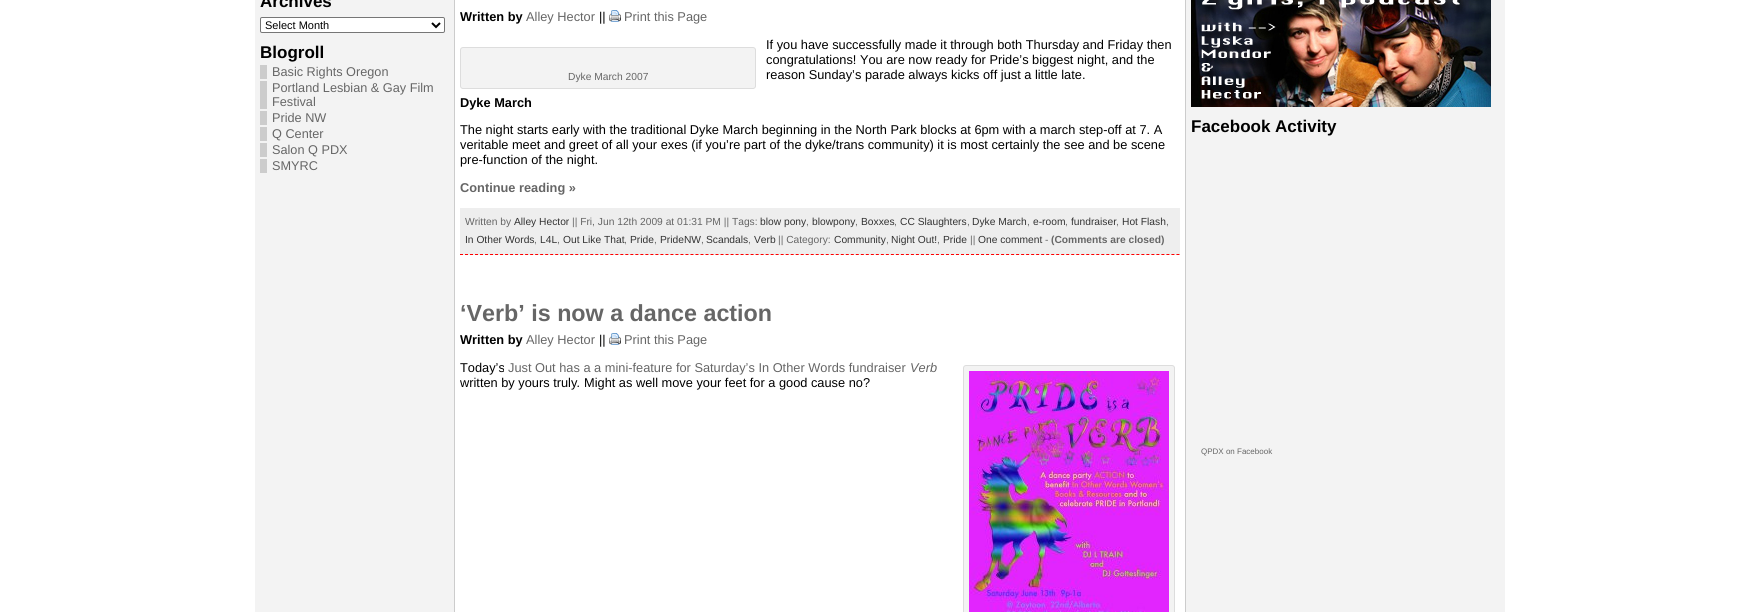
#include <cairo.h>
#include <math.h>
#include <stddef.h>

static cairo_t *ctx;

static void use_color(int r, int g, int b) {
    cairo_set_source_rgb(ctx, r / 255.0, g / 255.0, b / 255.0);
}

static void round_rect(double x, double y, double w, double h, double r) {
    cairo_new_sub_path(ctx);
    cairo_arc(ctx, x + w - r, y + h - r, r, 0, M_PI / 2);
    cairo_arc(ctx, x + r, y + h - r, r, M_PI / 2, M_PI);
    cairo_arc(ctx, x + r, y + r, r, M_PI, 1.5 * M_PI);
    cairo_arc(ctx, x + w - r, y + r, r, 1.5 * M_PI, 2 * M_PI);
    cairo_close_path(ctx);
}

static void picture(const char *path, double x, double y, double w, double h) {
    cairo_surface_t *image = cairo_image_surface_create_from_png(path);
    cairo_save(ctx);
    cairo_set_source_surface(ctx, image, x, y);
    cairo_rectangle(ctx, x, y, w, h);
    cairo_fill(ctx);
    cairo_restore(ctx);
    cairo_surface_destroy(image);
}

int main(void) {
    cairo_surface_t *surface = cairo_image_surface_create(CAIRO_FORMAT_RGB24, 1760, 612);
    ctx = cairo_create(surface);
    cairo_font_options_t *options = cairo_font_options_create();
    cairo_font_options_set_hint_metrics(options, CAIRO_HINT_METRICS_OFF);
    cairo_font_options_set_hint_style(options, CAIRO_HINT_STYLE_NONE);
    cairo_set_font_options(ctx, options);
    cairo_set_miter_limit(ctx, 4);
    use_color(255, 255, 255);
    cairo_paint(ctx);
    use_color(243, 243, 243);
    cairo_rectangle(ctx, 255, 0, 199, 612);
    cairo_fill(ctx);
    use_color(204, 204, 204);
    cairo_rectangle(ctx, 454, 0, 1, 612);
    cairo_fill(ctx);
    cairo_select_font_face(ctx, "Liberation Sans", CAIRO_FONT_SLANT_NORMAL, CAIRO_FONT_WEIGHT_BOLD);
    cairo_set_font_size(ctx, 17);
    use_color(0, 0, 0);
    cairo_move_to(ctx, 260, 7);
    cairo_show_text(ctx, "Archives");
    use_color(255, 255, 255);
    round_rect(260.5, 17.5, 184, 15, 1.5);
    cairo_fill_preserve(ctx);
    use_color(118, 118, 118);
    cairo_set_line_width(ctx, 1);
    cairo_stroke(ctx);
    cairo_new_path(ctx);
    cairo_move_to(ctx, 432, 23);
    cairo_line_to(ctx, 436, 27);
    cairo_line_to(ctx, 440, 23);
    use_color(0, 0, 0);
    cairo_set_line_width(ctx, 2);
    cairo_stroke(ctx);
    cairo_select_font_face(ctx, "Liberation Sans", CAIRO_FONT_SLANT_NORMAL, CAIRO_FONT_WEIGHT_NORMAL);
    cairo_set_font_size(ctx, 11);
    cairo_move_to(ctx, 265, 29);
    cairo_show_text(ctx, "Select Month");
    cairo_select_font_face(ctx, "Liberation Sans", CAIRO_FONT_SLANT_NORMAL, CAIRO_FONT_WEIGHT_BOLD);
    cairo_set_font_size(ctx, 17);
    cairo_move_to(ctx, 260, 58);
    cairo_show_text(ctx, "Blogroll");
    use_color(204, 204, 204);
    cairo_rectangle(ctx, 260, 65, 7, 14);
    cairo_fill(ctx);
    cairo_select_font_face(ctx, "Liberation Sans", CAIRO_FONT_SLANT_NORMAL, CAIRO_FONT_WEIGHT_NORMAL);
    cairo_set_font_size(ctx, 12.7);
    use_color(102, 102, 102);
    cairo_move_to(ctx, 272, 76);
    cairo_show_text(ctx, "Basic Rights Oregon");
    use_color(204, 204, 204);
    cairo_rectangle(ctx, 260, 81, 7, 28);
    cairo_fill(ctx);
    use_color(102, 102, 102);
    cairo_move_to(ctx, 272, 92);
    cairo_show_text(ctx, "Portland Lesbian & Gay Film");
    cairo_move_to(ctx, 272, 106);
    cairo_show_text(ctx, "Festival");
    use_color(204, 204, 204);
    cairo_rectangle(ctx, 260, 111, 7, 14);
    cairo_fill(ctx);
    use_color(102, 102, 102);
    cairo_move_to(ctx, 272, 122);
    cairo_show_text(ctx, "Pride NW");
    use_color(204, 204, 204);
    cairo_rectangle(ctx, 260, 127, 7, 14);
    cairo_fill(ctx);
    use_color(102, 102, 102);
    cairo_move_to(ctx, 272, 138);
    cairo_show_text(ctx, "Q Center");
    use_color(204, 204, 204);
    cairo_rectangle(ctx, 260, 143, 7, 14);
    cairo_fill(ctx);
    use_color(102, 102, 102);
    cairo_move_to(ctx, 272, 154);
    cairo_show_text(ctx, "Salon Q PDX");
    use_color(204, 204, 204);
    cairo_rectangle(ctx, 260, 159, 7, 14);
    cairo_fill(ctx);
    use_color(102, 102, 102);
    cairo_move_to(ctx, 272, 170);
    cairo_show_text(ctx, "SMYRC");
    cairo_select_font_face(ctx, "Liberation Sans", CAIRO_FONT_SLANT_NORMAL, CAIRO_FONT_WEIGHT_BOLD);
    cairo_set_font_size(ctx, 12.8);
    use_color(0, 0, 0);
    cairo_move_to(ctx, 460, 21);
    cairo_show_text(ctx, "Written by");
    cairo_select_font_face(ctx, "Liberation Sans", CAIRO_FONT_SLANT_NORMAL, CAIRO_FONT_WEIGHT_NORMAL);
    use_color(102, 102, 102);
    cairo_move_to(ctx, 526, 21);
    cairo_show_text(ctx, "Alley Hector");
    use_color(0, 0, 0);
    cairo_move_to(ctx, 599, 21);
    cairo_show_text(ctx, "||");
    picture("img1.png", 609, 10, 12, 12);
    use_color(102, 102, 102);
    cairo_move_to(ctx, 624, 21);
    cairo_show_text(ctx, "Print this Page");
    use_color(243, 243, 243);
    round_rect(460.5, 47.5, 295, 41, 2.5);
    cairo_fill_preserve(ctx);
    use_color(221, 221, 221);
    cairo_set_line_width(ctx, 1);
    cairo_stroke(ctx);
    cairo_set_font_size(ctx, 10.25);
    use_color(102, 102, 102);
    cairo_move_to(ctx, 568, 80);
    cairo_show_text(ctx, "Dyke March 2007");
    cairo_set_font_size(ctx, 12.8);
    use_color(0, 0, 0);
    cairo_move_to(ctx, 766, 49);
    cairo_show_text(ctx, "If you have successfully made it through both Thursday and Friday then");
    cairo_move_to(ctx, 766, 64);
    cairo_show_text(ctx, "congratulations! You are now ready for Pride’s biggest night, and the");
    cairo_move_to(ctx, 766, 79);
    cairo_show_text(ctx, "reason Sunday’s parade always kicks off just a little late.");
    cairo_select_font_face(ctx, "Liberation Sans", CAIRO_FONT_SLANT_NORMAL, CAIRO_FONT_WEIGHT_BOLD);
    cairo_move_to(ctx, 460, 107);
    cairo_show_text(ctx, "Dyke March");
    cairo_select_font_face(ctx, "Liberation Sans", CAIRO_FONT_SLANT_NORMAL, CAIRO_FONT_WEIGHT_NORMAL);
    cairo_move_to(ctx, 460, 134);
    cairo_show_text(ctx, "The night starts early with the traditional Dyke March beginning in the North Park blocks at 6pm with a march step-off at 7. A");
    cairo_move_to(ctx, 460, 149);
    cairo_show_text(ctx, "veritable meet and greet of all your exes (if you’re part of the dyke/trans community) it is most certainly the see and be scene");
    cairo_move_to(ctx, 460, 164);
    cairo_show_text(ctx, "pre-function of the night.");
    cairo_select_font_face(ctx, "Liberation Sans", CAIRO_FONT_SLANT_NORMAL, CAIRO_FONT_WEIGHT_BOLD);
    use_color(102, 102, 102);
    cairo_move_to(ctx, 460, 192);
    cairo_show_text(ctx, "Continue reading »");
    use_color(238, 238, 238);
    cairo_rectangle(ctx, 460, 208, 720, 47);
    cairo_fill(ctx);
    cairo_new_path(ctx);
    cairo_move_to(ctx, 460, 254.5);
    cairo_line_to(ctx, 1180, 254.5);
    use_color(255, 0, 0);
    cairo_set_dash(ctx, (double[]){3, 2.01}, 2, 0);
    cairo_stroke(ctx);
    cairo_select_font_face(ctx, "Liberation Sans", CAIRO_FONT_SLANT_NORMAL, CAIRO_FONT_WEIGHT_NORMAL);
    cairo_set_font_size(ctx, 10.25);
    use_color(102, 102, 102);
    cairo_move_to(ctx, 465, 225);
    cairo_show_text(ctx, "Written by");
    use_color(51, 51, 51);
    cairo_move_to(ctx, 514, 225);
    cairo_show_text(ctx, "Alley Hector");
    use_color(102, 102, 102);
    cairo_move_to(ctx, 572, 225);
    cairo_show_text(ctx, "|| Fri, Jun 12th 2009 at 01:31 PM || Tags:");
    use_color(51, 51, 51);
    cairo_move_to(ctx, 760, 225);
    cairo_show_text(ctx, "blow pony");
    use_color(102, 102, 102);
    cairo_move_to(ctx, 806, 225);
    cairo_show_text(ctx, ",");
    use_color(51, 51, 51);
    cairo_move_to(ctx, 812, 225);
    cairo_show_text(ctx, "blowpony");
    use_color(102, 102, 102);
    cairo_move_to(ctx, 855, 225);
    cairo_show_text(ctx, ",");
    use_color(51, 51, 51);
    cairo_move_to(ctx, 861, 225);
    cairo_show_text(ctx, "Boxxes");
    use_color(102, 102, 102);
    cairo_move_to(ctx, 894, 225);
    cairo_show_text(ctx, ",");
    use_color(51, 51, 51);
    cairo_move_to(ctx, 900, 225);
    cairo_show_text(ctx, "CC Slaughters");
    use_color(102, 102, 102);
    cairo_move_to(ctx, 967, 225);
    cairo_show_text(ctx, ",");
    use_color(51, 51, 51);
    cairo_move_to(ctx, 972, 225);
    cairo_show_text(ctx, "Dyke March");
    use_color(102, 102, 102);
    cairo_move_to(ctx, 1027, 225);
    cairo_show_text(ctx, ",");
    use_color(51, 51, 51);
    cairo_move_to(ctx, 1033, 225);
    cairo_show_text(ctx, "e-room");
    use_color(102, 102, 102);
    cairo_move_to(ctx, 1065, 225);
    cairo_show_text(ctx, ",");
    use_color(51, 51, 51);
    cairo_move_to(ctx, 1071, 225);
    cairo_show_text(ctx, "fundraiser");
    use_color(102, 102, 102);
    cairo_move_to(ctx, 1116, 225);
    cairo_show_text(ctx, ",");
    use_color(51, 51, 51);
    cairo_move_to(ctx, 1122, 225);
    cairo_show_text(ctx, "Hot Flash");
    use_color(102, 102, 102);
    cairo_move_to(ctx, 1166, 225);
    cairo_show_text(ctx, ",");
    use_color(51, 51, 51);
    cairo_move_to(ctx, 465, 243);
    cairo_show_text(ctx, "In Other Words");
    cairo_move_to(ctx, 540, 243);
    cairo_show_text(ctx, "L4L");
    cairo_move_to(ctx, 563, 243);
    cairo_show_text(ctx, "Out Like That");
    cairo_move_to(ctx, 630, 243);
    cairo_show_text(ctx, "Pride");
    cairo_move_to(ctx, 660, 243);
    cairo_show_text(ctx, "PrideNW");
    cairo_move_to(ctx, 706, 243);
    cairo_show_text(ctx, "Scandals");
    cairo_move_to(ctx, 754, 243);
    cairo_show_text(ctx, "Verb");
    use_color(102, 102, 102);
    cairo_move_to(ctx, 778, 243);
    cairo_show_text(ctx, "|| Category:");
    use_color(51, 51, 51);
    cairo_move_to(ctx, 834, 243);
    cairo_show_text(ctx, "Community");
    cairo_move_to(ctx, 891, 243);
    cairo_show_text(ctx, "Night Out!");
    cairo_move_to(ctx, 943, 243);
    cairo_show_text(ctx, "Pride");
    use_color(102, 102, 102);
    cairo_move_to(ctx, 970, 243);
    cairo_show_text(ctx, "||");
    use_color(51, 51, 51);
    cairo_move_to(ctx, 978, 243);
    cairo_show_text(ctx, "One comment");
    use_color(102, 102, 102);
    cairo_move_to(ctx, 1045, 243);
    cairo_show_text(ctx, "-");
    cairo_select_font_face(ctx, "Liberation Sans", CAIRO_FONT_SLANT_NORMAL, CAIRO_FONT_WEIGHT_BOLD);
    cairo_move_to(ctx, 1051, 243);
    cairo_show_text(ctx, "(Comments are closed)");
    cairo_select_font_face(ctx, "Liberation Sans", CAIRO_FONT_SLANT_NORMAL, CAIRO_FONT_WEIGHT_NORMAL);
    cairo_move_to(ctx, 534, 243);
    cairo_show_text(ctx, ",");
    cairo_move_to(ctx, 557, 243);
    cairo_show_text(ctx, ",");
    cairo_move_to(ctx, 624, 243);
    cairo_show_text(ctx, ",");
    cairo_move_to(ctx, 654, 243);
    cairo_show_text(ctx, ",");
    cairo_move_to(ctx, 701, 243);
    cairo_show_text(ctx, ",");
    cairo_move_to(ctx, 748, 243);
    cairo_show_text(ctx, ",");
    cairo_move_to(ctx, 886, 243);
    cairo_show_text(ctx, ",");
    cairo_move_to(ctx, 937, 243);
    cairo_show_text(ctx, ",");
    cairo_select_font_face(ctx, "Liberation Sans", CAIRO_FONT_SLANT_NORMAL, CAIRO_FONT_WEIGHT_BOLD);
    cairo_set_font_size(ctx, 23.3);
    cairo_move_to(ctx, 460, 321);
    cairo_show_text(ctx, "‘Verb’ is now a dance action");
    cairo_set_font_size(ctx, 12.8);
    use_color(0, 0, 0);
    cairo_move_to(ctx, 460, 344);
    cairo_show_text(ctx, "Written by");
    cairo_select_font_face(ctx, "Liberation Sans", CAIRO_FONT_SLANT_NORMAL, CAIRO_FONT_WEIGHT_NORMAL);
    use_color(102, 102, 102);
    cairo_move_to(ctx, 526, 344);
    cairo_show_text(ctx, "Alley Hector");
    use_color(0, 0, 0);
    cairo_move_to(ctx, 599, 344);
    cairo_show_text(ctx, "||");
    picture("img1.png", 609, 333, 12, 12);
    use_color(102, 102, 102);
    cairo_move_to(ctx, 624, 344);
    cairo_show_text(ctx, "Print this Page");
    use_color(0, 0, 0);
    cairo_move_to(ctx, 460, 372);
    cairo_show_text(ctx, "Today’s");
    use_color(102, 102, 102);
    cairo_move_to(ctx, 508, 372);
    cairo_show_text(ctx, "Just Out has a a mini-feature for Saturday’s In Other Words fundraiser");
    cairo_select_font_face(ctx, "Liberation Sans", CAIRO_FONT_SLANT_ITALIC, CAIRO_FONT_WEIGHT_NORMAL);
    cairo_move_to(ctx, 910, 372);
    cairo_show_text(ctx, "Verb");
    use_color(243, 243, 243);
    round_rect(963.5, 365.5, 211, 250, 2.5);
    cairo_fill_preserve(ctx);
    use_color(221, 221, 221);
    cairo_set_dash(ctx, NULL, 0, 0);
    cairo_stroke(ctx);
    picture("img2.png", 969, 371, 200, 241);
    cairo_select_font_face(ctx, "Liberation Sans", CAIRO_FONT_SLANT_NORMAL, CAIRO_FONT_WEIGHT_NORMAL);
    use_color(0, 0, 0);
    cairo_move_to(ctx, 460, 387);
    cairo_show_text(ctx, "written by yours truly");
    cairo_select_font_face(ctx, "Liberation Sans", CAIRO_FONT_SLANT_ITALIC, CAIRO_FONT_WEIGHT_NORMAL);
    cairo_move_to(ctx, 577, 387);
    cairo_show_text(ctx, ".");
    cairo_select_font_face(ctx, "Liberation Sans", CAIRO_FONT_SLANT_NORMAL, CAIRO_FONT_WEIGHT_NORMAL);
    cairo_move_to(ctx, 584, 387);
    cairo_show_text(ctx, "Might as well move your feet for a good cause no?");
    use_color(243, 243, 243);
    cairo_rectangle(ctx, 1186, 0, 319, 612);
    cairo_fill(ctx);
    use_color(204, 204, 204);
    cairo_rectangle(ctx, 1185, 0, 1, 612);
    cairo_fill(ctx);
    picture("img3.png", 1191, 0, 300, 107);
    cairo_select_font_face(ctx, "Liberation Sans", CAIRO_FONT_SLANT_NORMAL, CAIRO_FONT_WEIGHT_BOLD);
    cairo_set_font_size(ctx, 17);
    use_color(0, 0, 0);
    cairo_move_to(ctx, 1191, 132);
    cairo_show_text(ctx, "Facebook Activity");
    cairo_select_font_face(ctx, "Liberation Sans", CAIRO_FONT_SLANT_NORMAL, CAIRO_FONT_WEIGHT_NORMAL);
    cairo_set_font_size(ctx, 8);
    use_color(102, 102, 102);
    cairo_move_to(ctx, 1201, 454);
    cairo_show_text(ctx, "QPDX on Facebook");
    cairo_surface_write_to_png(surface, "result.png");
    cairo_font_options_destroy(options);
    cairo_destroy(ctx);
    cairo_surface_destroy(surface);
    return 0;
}
